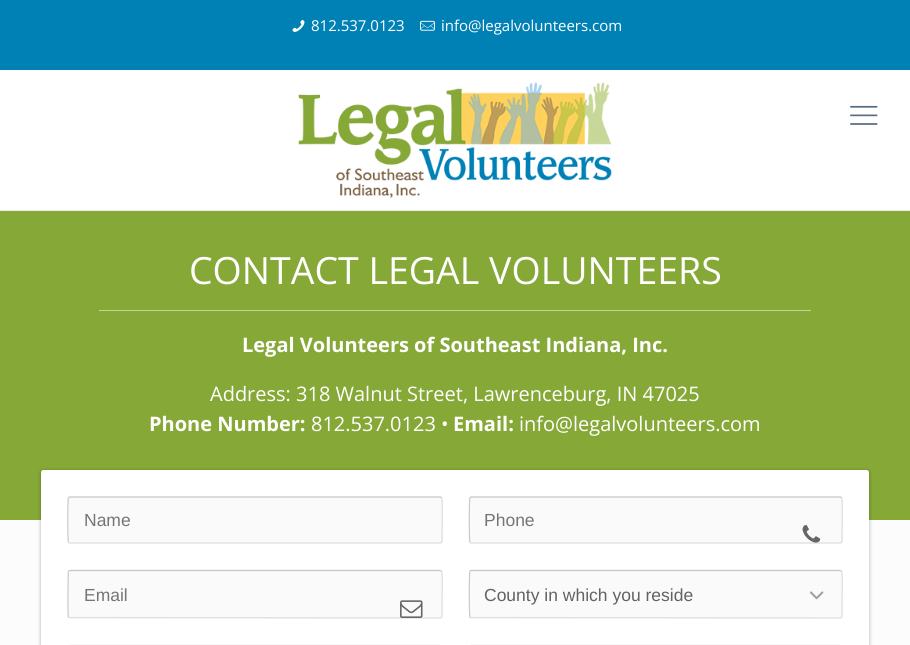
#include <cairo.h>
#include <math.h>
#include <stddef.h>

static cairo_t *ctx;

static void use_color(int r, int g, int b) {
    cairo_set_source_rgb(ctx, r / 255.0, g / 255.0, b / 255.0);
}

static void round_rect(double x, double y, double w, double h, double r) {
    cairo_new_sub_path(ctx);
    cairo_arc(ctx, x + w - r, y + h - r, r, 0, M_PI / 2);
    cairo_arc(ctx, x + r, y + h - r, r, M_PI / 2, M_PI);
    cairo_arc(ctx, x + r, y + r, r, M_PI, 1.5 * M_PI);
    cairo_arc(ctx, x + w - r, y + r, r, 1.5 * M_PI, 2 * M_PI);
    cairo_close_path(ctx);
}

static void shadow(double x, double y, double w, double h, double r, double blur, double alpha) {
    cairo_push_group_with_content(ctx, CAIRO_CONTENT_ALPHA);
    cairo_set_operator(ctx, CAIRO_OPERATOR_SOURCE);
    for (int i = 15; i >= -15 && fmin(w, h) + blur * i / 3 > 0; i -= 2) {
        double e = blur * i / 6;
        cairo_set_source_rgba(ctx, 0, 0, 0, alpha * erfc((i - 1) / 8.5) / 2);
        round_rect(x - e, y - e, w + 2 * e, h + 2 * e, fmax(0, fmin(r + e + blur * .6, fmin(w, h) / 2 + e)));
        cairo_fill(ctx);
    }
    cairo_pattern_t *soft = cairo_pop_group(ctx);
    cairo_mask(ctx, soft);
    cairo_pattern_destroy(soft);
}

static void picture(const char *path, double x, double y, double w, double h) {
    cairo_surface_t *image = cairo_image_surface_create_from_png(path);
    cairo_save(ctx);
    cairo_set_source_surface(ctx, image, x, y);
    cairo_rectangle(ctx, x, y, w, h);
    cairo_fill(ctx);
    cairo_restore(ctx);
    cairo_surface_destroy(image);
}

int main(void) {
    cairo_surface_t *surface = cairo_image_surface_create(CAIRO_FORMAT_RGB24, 910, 645);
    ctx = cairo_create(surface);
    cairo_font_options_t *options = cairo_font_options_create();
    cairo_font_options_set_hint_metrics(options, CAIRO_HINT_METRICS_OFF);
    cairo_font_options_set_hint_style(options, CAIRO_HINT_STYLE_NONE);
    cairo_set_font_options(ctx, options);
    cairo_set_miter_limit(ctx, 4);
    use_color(252, 252, 252);
    cairo_paint(ctx);
    use_color(255, 255, 255);
    cairo_rectangle(ctx, 0, 70, 910, 140);
    cairo_fill(ctx);
    use_color(0, 129, 182);
    cairo_rectangle(ctx, 0, 0, 910, 70);
    cairo_fill(ctx);
    picture("img1.png", 292, 20, 13, 12);
    cairo_select_font_face(ctx, "Open Sans", CAIRO_FONT_SLANT_NORMAL, CAIRO_FONT_WEIGHT_NORMAL);
    cairo_set_font_size(ctx, 15);
    use_color(255, 255, 255);
    cairo_move_to(ctx, 311, 31);
    cairo_show_text(ctx, "812.537.0123");
    picture("img2.png", 420, 20, 15, 11);
    cairo_move_to(ctx, 441, 31);
    cairo_show_text(ctx, "info@legalvolunteers.com");
    use_color(235, 235, 235);
    cairo_rectangle(ctx, 0, 210, 910, 1);
    cairo_fill(ctx);
    picture("img3.png", 298, 82, 314, 116);
    picture("img4.png", 850, 105, 28, 20);
    use_color(133, 168, 55);
    cairo_rectangle(ctx, 0, 211, 910, 309);
    cairo_fill(ctx);
    cairo_set_font_size(ctx, 37.5);
    use_color(255, 255, 255);
    cairo_move_to(ctx, 189, 284);
    cairo_show_text(ctx, "CONTACT LEGAL VOLUNTEERS");
    use_color(194, 212, 155);
    cairo_rectangle(ctx, 99, 310, 712, 1);
    cairo_fill(ctx);
    cairo_select_font_face(ctx, "Open Sans", CAIRO_FONT_SLANT_NORMAL, CAIRO_FONT_WEIGHT_BOLD);
    cairo_set_font_size(ctx, 20);
    use_color(255, 255, 255);
    cairo_move_to(ctx, 242, 352);
    cairo_show_text(ctx, "Legal Volunteers of Southeast Indiana, Inc.");
    cairo_select_font_face(ctx, "Open Sans", CAIRO_FONT_SLANT_NORMAL, CAIRO_FONT_WEIGHT_NORMAL);
    cairo_move_to(ctx, 210, 401);
    cairo_show_text(ctx, "Address: 318 Walnut Street, Lawrenceburg, IN 47025");
    cairo_select_font_face(ctx, "Open Sans", CAIRO_FONT_SLANT_NORMAL, CAIRO_FONT_WEIGHT_BOLD);
    cairo_move_to(ctx, 149, 431);
    cairo_show_text(ctx, "Phone Number:");
    cairo_select_font_face(ctx, "Open Sans", CAIRO_FONT_SLANT_NORMAL, CAIRO_FONT_WEIGHT_NORMAL);
    cairo_move_to(ctx, 311, 431);
    cairo_show_text(ctx, "812.537.0123 •");
    cairo_select_font_face(ctx, "Open Sans", CAIRO_FONT_SLANT_NORMAL, CAIRO_FONT_WEIGHT_BOLD);
    cairo_move_to(ctx, 453, 431);
    cairo_show_text(ctx, "Email:");
    cairo_select_font_face(ctx, "Open Sans", CAIRO_FONT_SLANT_NORMAL, CAIRO_FONT_WEIGHT_NORMAL);
    cairo_move_to(ctx, 519, 431);
    cairo_show_text(ctx, "info@legalvolunteers.com");
    use_color(0, 0, 0);
    shadow(41, 471, 828, 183, 2.5, 2, 0.3);
    use_color(255, 255, 255);
    round_rect(41, 470, 828, 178, 2.5);
    cairo_fill(ctx);
    use_color(250, 250, 250);
    round_rect(68, 496, 375, 48, 2.5);
    cairo_fill(ctx);
    cairo_new_path(ctx);
    cairo_move_to(ctx, 68.5, 497.5);
    cairo_line_to(ctx, 70, 497);
    cairo_line_to(ctx, 440, 497);
    cairo_line_to(ctx, 441.5, 497.5);
    use_color(198, 198, 198);
    cairo_set_line_width(ctx, 1.2);
    cairo_stroke(ctx);
    cairo_new_path(ctx);
    cairo_move_to(ctx, 441.5, 497.5);
    cairo_curve_to(ctx, 443, 499, 442, 530, 442, 534);
    cairo_curve_to(ctx, 442, 537.5, 443, 543, 440, 543);
    cairo_line_to(ctx, 70, 543);
    cairo_line_to(ctx, 68.5, 542.5);
    use_color(221, 221, 221);
    cairo_stroke(ctx);
    cairo_new_path(ctx);
    cairo_move_to(ctx, 68.5, 542.5);
    cairo_curve_to(ctx, 67.5, 541.5, 67.5, 498.5, 68.5, 497.5);
    use_color(201, 201, 201);
    cairo_stroke(ctx);
    cairo_select_font_face(ctx, "Liberation Sans", CAIRO_FONT_SLANT_NORMAL, CAIRO_FONT_WEIGHT_NORMAL);
    cairo_set_font_size(ctx, 17.5);
    use_color(117, 117, 117);
    cairo_move_to(ctx, 84, 526);
    cairo_show_text(ctx, "Name");
    use_color(250, 250, 250);
    round_rect(469, 496, 374, 48, 2.5);
    cairo_fill(ctx);
    cairo_new_path(ctx);
    cairo_move_to(ctx, 470, 497.5);
    cairo_line_to(ctx, 471, 497);
    cairo_line_to(ctx, 840, 497);
    cairo_line_to(ctx, 841.5, 497.5);
    use_color(198, 198, 198);
    cairo_stroke(ctx);
    cairo_new_path(ctx);
    cairo_move_to(ctx, 841.5, 497.5);
    cairo_curve_to(ctx, 843, 499, 842, 530, 842, 534);
    cairo_curve_to(ctx, 842, 537.5, 843, 543, 840, 543);
    cairo_line_to(ctx, 471, 543);
    cairo_line_to(ctx, 470, 542.5);
    use_color(221, 221, 221);
    cairo_stroke(ctx);
    cairo_new_path(ctx);
    cairo_move_to(ctx, 470, 542.5);
    cairo_curve_to(ctx, 469, 541.5, 469, 498.5, 470, 497.5);
    use_color(201, 201, 201);
    cairo_stroke(ctx);
    use_color(117, 117, 117);
    cairo_move_to(ctx, 484, 526);
    cairo_show_text(ctx, "Phone");
    picture("img5.png", 802, 525, 19, 18);
    use_color(250, 250, 250);
    round_rect(68, 570, 375, 49, 2.5);
    cairo_fill(ctx);
    cairo_new_path(ctx);
    cairo_move_to(ctx, 68.5, 571);
    cairo_line_to(ctx, 70, 570.5);
    cairo_line_to(ctx, 440, 570.5);
    cairo_line_to(ctx, 441.5, 571);
    use_color(198, 198, 198);
    cairo_stroke(ctx);
    cairo_new_path(ctx);
    cairo_move_to(ctx, 441.5, 571);
    cairo_curve_to(ctx, 443, 572.5, 442, 598, 442, 601.5);
    cairo_line_to(ctx, 442, 609);
    cairo_curve_to(ctx, 442, 612.5, 443, 618, 440, 618);
    cairo_line_to(ctx, 68.5, 617.5);
    use_color(221, 221, 221);
    cairo_stroke(ctx);
    cairo_new_path(ctx);
    cairo_move_to(ctx, 68.5, 617.5);
    cairo_curve_to(ctx, 67.5, 616.5, 68, 572, 68.5, 571);
    use_color(201, 201, 201);
    cairo_stroke(ctx);
    use_color(117, 117, 117);
    cairo_move_to(ctx, 84, 601);
    cairo_show_text(ctx, "Email");
    picture("img6.png", 400, 600, 23, 18);
    use_color(250, 250, 250);
    round_rect(469, 570, 374, 49, 2.5);
    cairo_fill(ctx);
    picture("img7.png", 809, 591, 15, 9);
    cairo_new_path(ctx);
    cairo_move_to(ctx, 470, 571);
    cairo_line_to(ctx, 471, 570.5);
    cairo_line_to(ctx, 840, 570.5);
    cairo_line_to(ctx, 841.5, 571);
    use_color(198, 198, 198);
    cairo_stroke(ctx);
    cairo_new_path(ctx);
    cairo_move_to(ctx, 841.5, 571);
    cairo_curve_to(ctx, 843, 572.5, 842, 598, 842, 601.5);
    cairo_line_to(ctx, 842, 609);
    cairo_curve_to(ctx, 842, 612.5, 843, 618, 840, 618);
    cairo_line_to(ctx, 470, 617.5);
    use_color(221, 221, 221);
    cairo_stroke(ctx);
    cairo_new_path(ctx);
    cairo_move_to(ctx, 470, 617.5);
    cairo_curve_to(ctx, 469, 616.5, 469, 572, 470, 571);
    use_color(201, 201, 201);
    cairo_stroke(ctx);
    use_color(98, 98, 98);
    cairo_move_to(ctx, 484, 601);
    cairo_show_text(ctx, "County in which you reside");
    cairo_new_path(ctx);
    cairo_move_to(ctx, 68.5, 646);
    cairo_line_to(ctx, 70, 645.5);
    cairo_line_to(ctx, 440, 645.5);
    cairo_line_to(ctx, 441.5, 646);
    use_color(198, 198, 198);
    cairo_stroke(ctx);
    cairo_new_path(ctx);
    cairo_move_to(ctx, 470, 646);
    cairo_line_to(ctx, 471, 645.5);
    cairo_line_to(ctx, 840, 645.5);
    cairo_line_to(ctx, 841.5, 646);
    cairo_stroke(ctx);
    cairo_surface_write_to_png(surface, "result.png");
    cairo_font_options_destroy(options);
    cairo_destroy(ctx);
    cairo_surface_destroy(surface);
    return 0;
}
